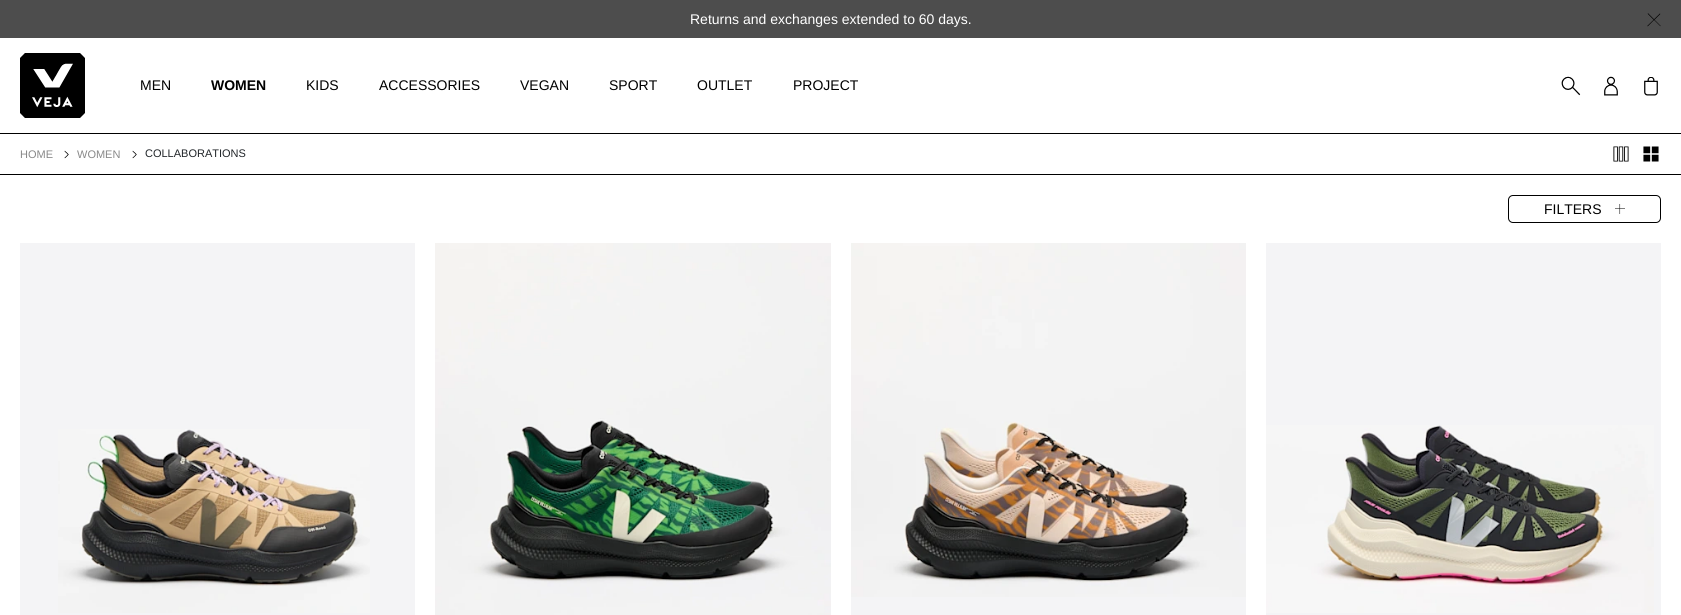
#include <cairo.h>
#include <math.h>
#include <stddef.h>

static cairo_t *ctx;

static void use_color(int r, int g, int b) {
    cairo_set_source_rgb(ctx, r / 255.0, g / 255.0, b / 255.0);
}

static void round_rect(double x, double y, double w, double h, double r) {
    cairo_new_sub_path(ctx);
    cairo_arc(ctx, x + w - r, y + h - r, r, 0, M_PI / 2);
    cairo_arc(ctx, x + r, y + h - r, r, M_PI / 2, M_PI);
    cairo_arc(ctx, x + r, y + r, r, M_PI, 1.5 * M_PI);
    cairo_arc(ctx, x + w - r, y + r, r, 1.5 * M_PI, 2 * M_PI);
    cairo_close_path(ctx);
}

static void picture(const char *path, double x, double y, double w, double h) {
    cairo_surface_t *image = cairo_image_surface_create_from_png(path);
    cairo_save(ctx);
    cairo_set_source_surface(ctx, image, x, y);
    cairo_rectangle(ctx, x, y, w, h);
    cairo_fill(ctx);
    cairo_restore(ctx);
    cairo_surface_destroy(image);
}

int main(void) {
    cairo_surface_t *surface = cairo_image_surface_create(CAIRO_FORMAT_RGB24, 1681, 615);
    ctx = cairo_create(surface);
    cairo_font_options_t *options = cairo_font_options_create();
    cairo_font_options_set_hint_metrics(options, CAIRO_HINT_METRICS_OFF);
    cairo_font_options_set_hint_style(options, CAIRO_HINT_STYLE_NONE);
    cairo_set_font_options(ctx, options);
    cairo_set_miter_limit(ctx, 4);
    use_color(255, 255, 255);
    cairo_paint(ctx);
    use_color(0, 0, 0);
    cairo_rectangle(ctx, 0, 133, 1681, 1);
    cairo_fill(ctx);
    use_color(77, 77, 77);
    cairo_rectangle(ctx, 0, 0, 1681, 38);
    cairo_fill(ctx);
    cairo_select_font_face(ctx, "Liberation Sans", CAIRO_FONT_SLANT_NORMAL, CAIRO_FONT_WEIGHT_NORMAL);
    cairo_set_font_size(ctx, 14);
    use_color(255, 255, 255);
    cairo_move_to(ctx, 690, 24);
    cairo_show_text(ctx, "Returns and exchanges extended to 60 days.");
    picture("img1.png", 1647, 13, 14, 14);
    picture("img2.png", 20, 53, 65, 65);
    use_color(0, 0, 0);
    cairo_move_to(ctx, 140, 90);
    cairo_show_text(ctx, "MEN");
    cairo_select_font_face(ctx, "Liberation Sans", CAIRO_FONT_SLANT_NORMAL, CAIRO_FONT_WEIGHT_BOLD);
    cairo_move_to(ctx, 211, 90);
    cairo_show_text(ctx, "WOMEN");
    cairo_select_font_face(ctx, "Liberation Sans", CAIRO_FONT_SLANT_NORMAL, CAIRO_FONT_WEIGHT_NORMAL);
    cairo_move_to(ctx, 306, 90);
    cairo_show_text(ctx, "KIDS");
    cairo_move_to(ctx, 379, 90);
    cairo_show_text(ctx, "ACCESSORIES");
    cairo_move_to(ctx, 520, 90);
    cairo_show_text(ctx, "VEGAN");
    cairo_move_to(ctx, 609, 90);
    cairo_show_text(ctx, "SPORT");
    cairo_move_to(ctx, 697, 90);
    cairo_show_text(ctx, "OUTLET");
    cairo_move_to(ctx, 793, 90);
    cairo_show_text(ctx, "PROJECT");
    picture("img3.png", 1561, 76, 20, 20);
    picture("img4.png", 1604, 76, 14, 20);
    picture("img5.png", 1644, 77, 14, 19);
    cairo_rectangle(ctx, 0, 174, 1681, 1);
    cairo_fill(ctx);
    cairo_set_font_size(ctx, 11);
    use_color(136, 136, 136);
    cairo_move_to(ctx, 20, 158);
    cairo_show_text(ctx, "HOME");
    picture("img6.png", 64, 150, 5, 9);
    cairo_move_to(ctx, 77, 158);
    cairo_show_text(ctx, "WOMEN");
    picture("img6.png", 132, 150, 5, 9);
    use_color(33, 37, 41);
    cairo_move_to(ctx, 145, 157);
    cairo_show_text(ctx, "COLLABORATIONS");
    picture("img7.png", 1613, 146, 16, 16);
    picture("img8.png", 1643, 146, 16, 16);
    round_rect(1508.5, 195.5, 152, 27, 4.5);
    use_color(0, 0, 0);
    cairo_set_line_width(ctx, 1);
    cairo_stroke(ctx);
    cairo_set_font_size(ctx, 14);
    cairo_move_to(ctx, 1544, 214);
    cairo_show_text(ctx, "FILTERS");
    picture("img9.png", 1615, 204, 10, 10);
    use_color(244, 244, 246);
    cairo_rectangle(ctx, 20, 243, 395, 372);
    cairo_fill(ctx);
    picture("img10.png", 58, 429, 312, 184);
    picture("img11.png", 435, 243, 396, 372);
    cairo_rectangle(ctx, 851, 597, 395, 18);
    cairo_fill(ctx);
    picture("img12.png", 851, 243, 395, 354);
    cairo_rectangle(ctx, 1266, 243, 395, 372);
    cairo_fill(ctx);
    picture("img13.png", 1266, 425, 388, 188);
    cairo_surface_write_to_png(surface, "result.png");
    cairo_font_options_destroy(options);
    cairo_destroy(ctx);
    cairo_surface_destroy(surface);
    return 0;
}
